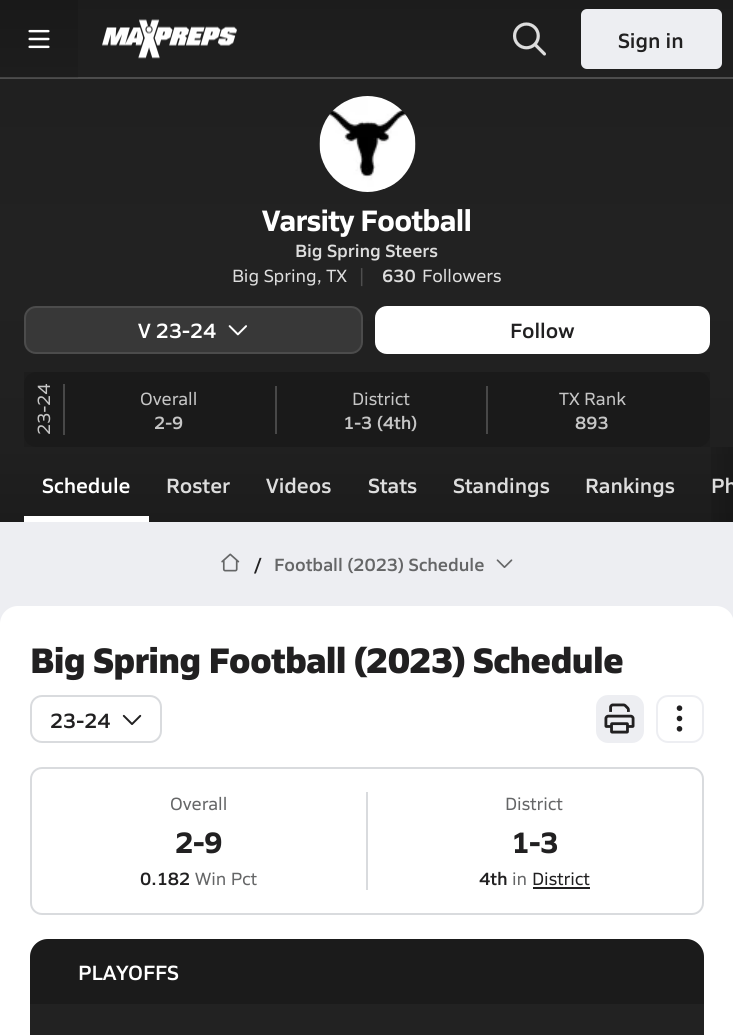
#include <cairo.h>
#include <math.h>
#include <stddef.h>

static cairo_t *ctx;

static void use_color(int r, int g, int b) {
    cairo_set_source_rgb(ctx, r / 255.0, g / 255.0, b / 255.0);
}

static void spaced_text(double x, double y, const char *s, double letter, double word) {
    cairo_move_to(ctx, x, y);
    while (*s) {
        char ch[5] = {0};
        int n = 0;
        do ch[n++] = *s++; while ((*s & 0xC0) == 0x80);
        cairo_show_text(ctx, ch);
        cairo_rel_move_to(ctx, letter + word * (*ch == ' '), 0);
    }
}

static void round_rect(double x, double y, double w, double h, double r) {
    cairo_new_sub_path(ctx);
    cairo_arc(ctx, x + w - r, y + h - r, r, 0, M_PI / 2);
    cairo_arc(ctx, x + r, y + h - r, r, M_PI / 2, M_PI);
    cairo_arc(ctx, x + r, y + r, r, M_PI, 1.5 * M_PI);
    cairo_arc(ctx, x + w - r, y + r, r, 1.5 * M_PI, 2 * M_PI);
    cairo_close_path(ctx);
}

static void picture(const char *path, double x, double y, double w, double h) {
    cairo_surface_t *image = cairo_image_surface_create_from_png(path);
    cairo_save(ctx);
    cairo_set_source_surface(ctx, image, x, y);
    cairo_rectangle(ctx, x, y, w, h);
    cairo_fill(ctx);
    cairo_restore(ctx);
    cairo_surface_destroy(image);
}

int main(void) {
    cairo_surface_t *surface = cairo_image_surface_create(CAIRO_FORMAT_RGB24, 733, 1035);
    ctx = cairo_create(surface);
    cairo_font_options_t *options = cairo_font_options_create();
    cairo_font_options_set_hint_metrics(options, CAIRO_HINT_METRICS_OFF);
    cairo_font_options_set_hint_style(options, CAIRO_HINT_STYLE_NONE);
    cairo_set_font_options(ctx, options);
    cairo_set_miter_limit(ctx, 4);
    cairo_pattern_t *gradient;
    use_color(237, 238, 242);
    cairo_paint(ctx);
    gradient = cairo_pattern_create_linear(367, 0, 367, 78);
    cairo_pattern_add_color_stop_rgba(gradient, 0, 0.11, 0.11, 0.11, 1);
    cairo_pattern_add_color_stop_rgba(gradient, 1, 0.125, 0.125, 0.125, 1);
    cairo_set_source(ctx, gradient);
    cairo_pattern_destroy(gradient);
    cairo_rectangle(ctx, 78, 0, 655, 77);
    cairo_fill(ctx);
    gradient = cairo_pattern_create_linear(367, 0, 367, 78);
    cairo_pattern_add_color_stop_rgba(gradient, 0, 0.098, 0.098, 0.098, 1);
    cairo_pattern_add_color_stop_rgba(gradient, 1, 0.114, 0.114, 0.114, 1);
    cairo_set_source(ctx, gradient);
    cairo_pattern_destroy(gradient);
    cairo_rectangle(ctx, 0, 0, 78, 77);
    cairo_fill(ctx);
    picture("img1.png", 28, 29, 22, 20);
    picture("img2.png", 102, 19, 135, 40);
    picture("img3.png", 513, 22, 33, 34);
    use_color(237, 238, 242);
    round_rect(582, 10, 139, 58, 5);
    cairo_fill_preserve(ctx);
    cairo_stroke(ctx);
    cairo_select_font_face(ctx, "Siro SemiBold", CAIRO_FONT_SLANT_NORMAL, CAIRO_FONT_WEIGHT_NORMAL);
    cairo_set_font_size(ctx, 21);
    use_color(33, 32, 33);
    cairo_move_to(ctx, 618, 48);
    cairo_show_text(ctx, "Sign in");
    use_color(77, 77, 77);
    cairo_rectangle(ctx, 0, 77, 733, 2);
    cairo_fill(ctx);
    use_color(69, 69, 69);
    cairo_rectangle(ctx, 0, 77, 78, 1);
    cairo_fill(ctx);
    gradient = cairo_pattern_create_linear(367, 78, 367, 447);
    cairo_pattern_add_color_stop_rgba(gradient, 0, 0.125, 0.125, 0.125, 1);
    cairo_pattern_add_color_stop_rgba(gradient, 0.43, 0.133, 0.133, 0.133, 1);
    cairo_pattern_add_color_stop_rgba(gradient, 0.57, 0.133, 0.133, 0.133, 1);
    cairo_pattern_add_color_stop_rgba(gradient, 1, 0.125, 0.125, 0.125, 1);
    cairo_set_source(ctx, gradient);
    cairo_pattern_destroy(gradient);
    cairo_rectangle(ctx, 0, 79, 733, 368);
    cairo_fill(ctx);
    picture("img4.png", 319, 96, 97, 96);
    cairo_select_font_face(ctx, "Siro", CAIRO_FONT_SLANT_NORMAL, CAIRO_FONT_WEIGHT_BOLD);
    cairo_set_font_size(ctx, 30);
    use_color(255, 255, 255);
    spaced_text(262, 231, "Varsity Football", -0.7, 0);
    cairo_select_font_face(ctx, "Siro SemiBold", CAIRO_FONT_SLANT_NORMAL, CAIRO_FONT_WEIGHT_NORMAL);
    cairo_set_font_size(ctx, 18);
    use_color(221, 221, 221);
    cairo_move_to(ctx, 295, 257);
    cairo_show_text(ctx, "Big Spring Steers");
    cairo_select_font_face(ctx, "Siro", CAIRO_FONT_SLANT_NORMAL, CAIRO_FONT_WEIGHT_NORMAL);
    cairo_move_to(ctx, 232, 282);
    cairo_show_text(ctx, "Big Spring, TX");
    use_color(78, 78, 78);
    cairo_move_to(ctx, 359, 282);
    cairo_show_text(ctx, "|");
    cairo_select_font_face(ctx, "Siro SemiBold", CAIRO_FONT_SLANT_NORMAL, CAIRO_FONT_WEIGHT_NORMAL);
    use_color(221, 221, 221);
    cairo_move_to(ctx, 382, 282);
    cairo_show_text(ctx, "630");
    cairo_select_font_face(ctx, "Siro", CAIRO_FONT_SLANT_NORMAL, CAIRO_FONT_WEIGHT_NORMAL);
    cairo_move_to(ctx, 422, 282);
    cairo_show_text(ctx, "Followers");
    use_color(56, 56, 56);
    round_rect(24, 306, 339, 48, 12);
    cairo_fill(ctx);
    round_rect(25, 307, 337, 46, 11);
    cairo_set_source_rgba(ctx, 1, 1, 1, 0.1);
    cairo_stroke(ctx);
    cairo_select_font_face(ctx, "Siro SemiBold", CAIRO_FONT_SLANT_NORMAL, CAIRO_FONT_WEIGHT_NORMAL);
    cairo_set_font_size(ctx, 21);
    use_color(255, 255, 255);
    cairo_move_to(ctx, 138, 338);
    cairo_show_text(ctx, "V 23-24");
    picture("img5.png", 228, 325, 19, 11);
    round_rect(376, 307, 333, 46, 11);
    cairo_fill_preserve(ctx);
    cairo_stroke(ctx);
    use_color(33, 32, 33);
    cairo_move_to(ctx, 510, 338);
    cairo_show_text(ctx, "Follow");
    use_color(29, 29, 29);
    cairo_rectangle(ctx, 24, 372, 686, 75);
    cairo_fill(ctx);
    use_color(26, 26, 26);
    round_rect(24, 372, 686, 75, 12);
    cairo_fill(ctx);
    use_color(72, 72, 72);
    cairo_rectangle(ctx, 63, 384, 2, 51);
    cairo_fill(ctx);
    cairo_select_font_face(ctx, "Siro", CAIRO_FONT_SLANT_NORMAL, CAIRO_FONT_WEIGHT_NORMAL);
    cairo_set_font_size(ctx, 18);
    use_color(198, 198, 198);
    cairo_save(ctx);
    cairo_translate(ctx, 50, 435);
    cairo_rotate(ctx, -90 * M_PI / 180);
    cairo_move_to(ctx, 0, 0);
    cairo_show_text(ctx, "23-24");
    cairo_restore(ctx);
    use_color(72, 72, 72);
    cairo_rectangle(ctx, 275, 386, 2, 48);
    cairo_fill(ctx);
    use_color(198, 198, 198);
    cairo_move_to(ctx, 140, 405);
    cairo_show_text(ctx, "Overall");
    cairo_select_font_face(ctx, "Siro SemiBold", CAIRO_FONT_SLANT_NORMAL, CAIRO_FONT_WEIGHT_NORMAL);
    cairo_move_to(ctx, 154, 429);
    cairo_show_text(ctx, "2-9");
    use_color(72, 72, 72);
    cairo_rectangle(ctx, 486, 386, 2, 48);
    cairo_fill(ctx);
    cairo_select_font_face(ctx, "Siro", CAIRO_FONT_SLANT_NORMAL, CAIRO_FONT_WEIGHT_NORMAL);
    use_color(198, 198, 198);
    cairo_move_to(ctx, 352, 405);
    cairo_show_text(ctx, "District");
    cairo_select_font_face(ctx, "Siro SemiBold", CAIRO_FONT_SLANT_NORMAL, CAIRO_FONT_WEIGHT_NORMAL);
    cairo_move_to(ctx, 343, 429);
    cairo_show_text(ctx, "1-3 (4th)");
    cairo_select_font_face(ctx, "Siro", CAIRO_FONT_SLANT_NORMAL, CAIRO_FONT_WEIGHT_NORMAL);
    cairo_move_to(ctx, 559, 405);
    cairo_show_text(ctx, "TX Rank");
    cairo_select_font_face(ctx, "Siro SemiBold", CAIRO_FONT_SLANT_NORMAL, CAIRO_FONT_WEIGHT_NORMAL);
    cairo_move_to(ctx, 575, 429);
    cairo_show_text(ctx, "893");
    gradient = cairo_pattern_create_linear(367, 447, 367, 522);
    cairo_pattern_add_color_stop_rgba(gradient, 0, 0.125, 0.125, 0.125, 1);
    cairo_pattern_add_color_stop_rgba(gradient, 1, 0.11, 0.11, 0.11, 1);
    cairo_set_source(ctx, gradient);
    cairo_pattern_destroy(gradient);
    cairo_rectangle(ctx, 0, 447, 733, 75);
    cairo_fill(ctx);
    gradient = cairo_pattern_create_linear(696, 485, 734, 485);
    cairo_pattern_add_color_stop_rgba(gradient, 0, 0, 0, 0, 0);
    cairo_pattern_add_color_stop_rgba(gradient, 1, 0, 0, 0, 0.2);
    cairo_set_source(ctx, gradient);
    cairo_pattern_destroy(gradient);
    cairo_rectangle(ctx, 711, 447, 22, 75);
    cairo_fill(ctx);
    cairo_set_font_size(ctx, 21);
    use_color(255, 255, 255);
    cairo_move_to(ctx, 42, 493);
    cairo_show_text(ctx, "Schedule");
    cairo_rectangle(ctx, 24, 516, 125, 6);
    cairo_fill(ctx);
    use_color(221, 221, 221);
    cairo_move_to(ctx, 166, 493);
    cairo_show_text(ctx, "Roster");
    cairo_move_to(ctx, 266, 493);
    cairo_show_text(ctx, "Videos");
    cairo_move_to(ctx, 368, 493);
    cairo_show_text(ctx, "Stats");
    cairo_move_to(ctx, 453, 493);
    cairo_show_text(ctx, "Standings");
    cairo_move_to(ctx, 585, 493);
    cairo_show_text(ctx, "Rankings");
    cairo_move_to(ctx, 711, 493);
    cairo_show_text(ctx, "Ph");
    picture("img6.png", 221, 553, 19, 19);
    cairo_set_font_size(ctx, 18);
    use_color(33, 32, 33);
    cairo_move_to(ctx, 254, 571);
    cairo_show_text(ctx, "/");
    use_color(101, 102, 103);
    cairo_move_to(ctx, 274, 571);
    cairo_show_text(ctx, "Football (2023) Schedule");
    picture("img7.png", 496, 559, 17, 9);
    use_color(255, 255, 255);
    round_rect(0, 606, 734, 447, 18);
    cairo_fill(ctx);
    cairo_select_font_face(ctx, "Siro ExtraBold", CAIRO_FONT_SLANT_NORMAL, CAIRO_FONT_WEIGHT_NORMAL);
    cairo_set_font_size(ctx, 36);
    use_color(33, 32, 33);
    spaced_text(30, 673, "Big Spring Football (2023) Schedule", -0.7, 0);
    round_rect(31, 696, 130, 46, 11);
    use_color(217, 219, 222);
    cairo_stroke(ctx);
    cairo_select_font_face(ctx, "Siro SemiBold", CAIRO_FONT_SLANT_NORMAL, CAIRO_FONT_WEIGHT_NORMAL);
    cairo_set_font_size(ctx, 21);
    use_color(33, 32, 33);
    cairo_move_to(ctx, 50, 728);
    cairo_show_text(ctx, "23-24");
    picture("img8.png", 122, 714, 20, 11);
    use_color(237, 238, 242);
    round_rect(597, 696, 46, 46, 11);
    cairo_fill_preserve(ctx);
    cairo_stroke(ctx);
    picture("img9.png", 604, 703, 31, 31);
    round_rect(657, 696, 46, 46, 11);
    cairo_stroke(ctx);
    picture("img10.png", 676, 705, 7, 27);
    round_rect(31, 768, 672, 146, 11);
    use_color(217, 219, 222);
    cairo_stroke(ctx);
    cairo_rectangle(ctx, 366, 792, 2, 98);
    cairo_fill(ctx);
    cairo_select_font_face(ctx, "Siro", CAIRO_FONT_SLANT_NORMAL, CAIRO_FONT_WEIGHT_NORMAL);
    cairo_set_font_size(ctx, 18);
    use_color(101, 102, 103);
    cairo_move_to(ctx, 170, 810);
    cairo_show_text(ctx, "Overall");
    cairo_select_font_face(ctx, "Siro", CAIRO_FONT_SLANT_NORMAL, CAIRO_FONT_WEIGHT_BOLD);
    cairo_set_font_size(ctx, 30);
    use_color(33, 32, 33);
    spaced_text(175, 853, "2-9", -0.7, 0);
    cairo_select_font_face(ctx, "Siro SemiBold", CAIRO_FONT_SLANT_NORMAL, CAIRO_FONT_WEIGHT_NORMAL);
    cairo_set_font_size(ctx, 18);
    cairo_move_to(ctx, 140, 885);
    cairo_show_text(ctx, "0.182");
    cairo_select_font_face(ctx, "Siro", CAIRO_FONT_SLANT_NORMAL, CAIRO_FONT_WEIGHT_NORMAL);
    use_color(101, 102, 103);
    cairo_move_to(ctx, 195, 885);
    cairo_show_text(ctx, "Win Pct");
    cairo_move_to(ctx, 505, 810);
    cairo_show_text(ctx, "District");
    cairo_select_font_face(ctx, "Siro", CAIRO_FONT_SLANT_NORMAL, CAIRO_FONT_WEIGHT_BOLD);
    cairo_set_font_size(ctx, 30);
    use_color(33, 32, 33);
    spaced_text(511, 853, "1-3", -0.7, 0);
    cairo_select_font_face(ctx, "Siro SemiBold", CAIRO_FONT_SLANT_NORMAL, CAIRO_FONT_WEIGHT_NORMAL);
    cairo_set_font_size(ctx, 18);
    cairo_move_to(ctx, 479, 885);
    cairo_show_text(ctx, "4th");
    cairo_select_font_face(ctx, "Siro", CAIRO_FONT_SLANT_NORMAL, CAIRO_FONT_WEIGHT_NORMAL);
    use_color(101, 102, 103);
    cairo_move_to(ctx, 512, 885);
    cairo_show_text(ctx, "in");
    use_color(33, 32, 33);
    cairo_move_to(ctx, 532, 885);
    cairo_show_text(ctx, "District");
    cairo_rectangle(ctx, 533, 887, 57, 2);
    cairo_fill(ctx);
    use_color(34, 34, 34);
    round_rect(30, 939, 674, 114, 18);
    cairo_fill(ctx);
    cairo_set_source_rgba(ctx, 0, 0, 0, 0.2);
    cairo_new_path(ctx);
    cairo_move_to(ctx, 48, 939);
    cairo_line_to(ctx, 686, 939);
    cairo_curve_to(ctx, 696, 939, 704, 947, 704, 957);
    cairo_line_to(ctx, 704, 1004);
    cairo_line_to(ctx, 30, 1004);
    cairo_line_to(ctx, 30, 957);
    cairo_curve_to(ctx, 30, 947, 38, 939, 48, 939);
    cairo_close_path(ctx);
    cairo_fill(ctx);
    cairo_select_font_face(ctx, "Siro SemiBold", CAIRO_FONT_SLANT_NORMAL, CAIRO_FONT_WEIGHT_NORMAL);
    cairo_set_font_size(ctx, 21);
    use_color(255, 255, 255);
    cairo_move_to(ctx, 78, 980);
    cairo_show_text(ctx, "PLAYOFFS");
    cairo_surface_write_to_png(surface, "result.png");
    cairo_font_options_destroy(options);
    cairo_destroy(ctx);
    cairo_surface_destroy(surface);
    return 0;
}
